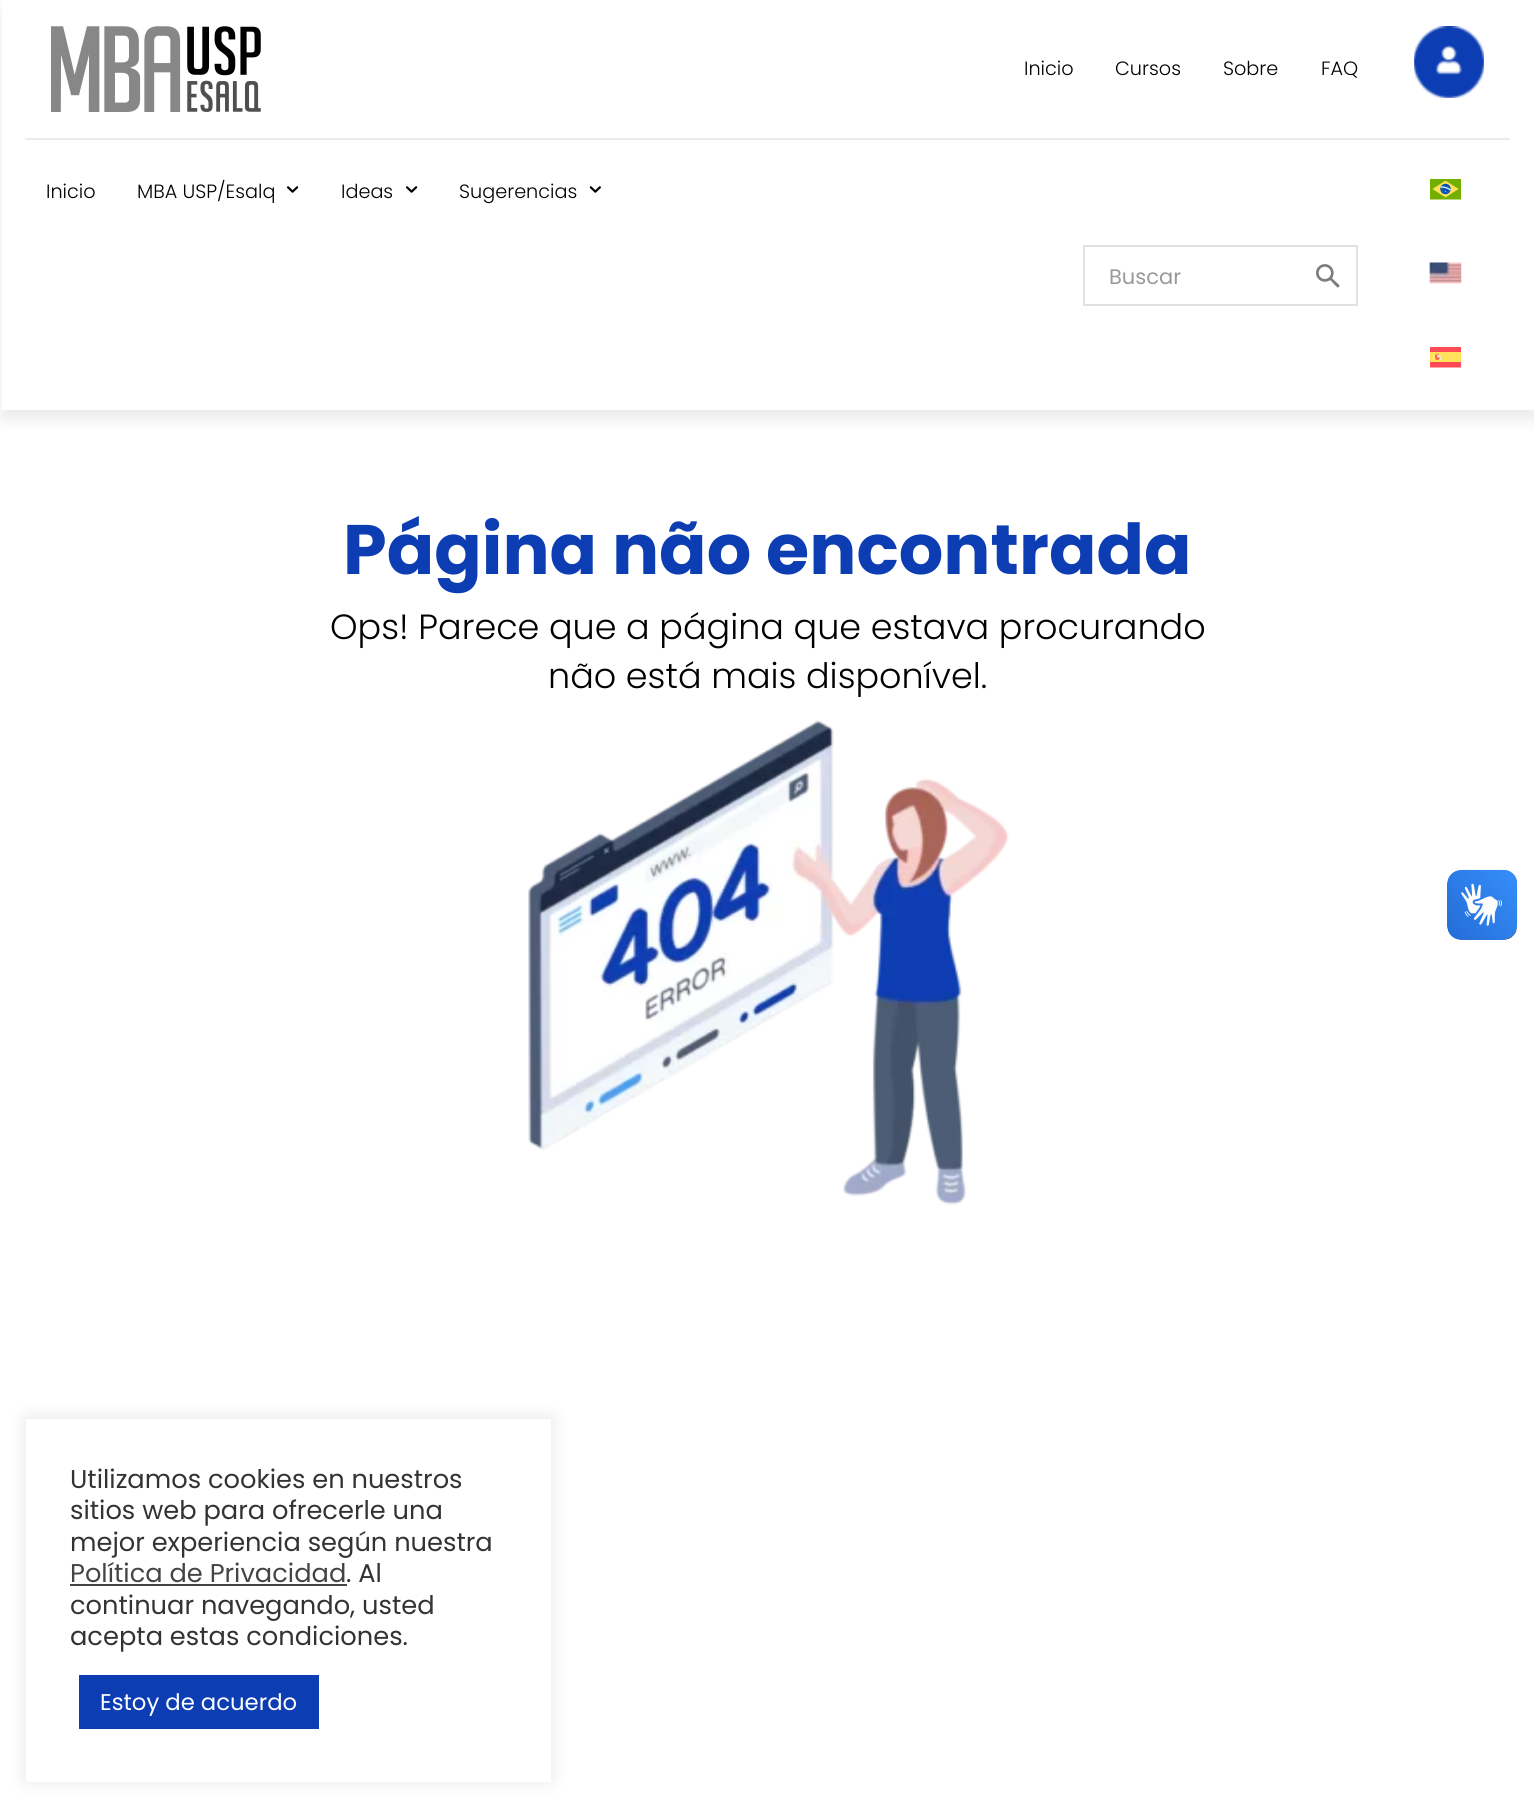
#include <cairo.h>
#include <math.h>
#include <stddef.h>

static cairo_t *ctx;

static void use_color(int r, int g, int b) {
    cairo_set_source_rgb(ctx, r / 255.0, g / 255.0, b / 255.0);
}

static void round_rect(double x, double y, double w, double h, double r) {
    cairo_new_sub_path(ctx);
    cairo_arc(ctx, x + w - r, y + h - r, r, 0, M_PI / 2);
    cairo_arc(ctx, x + r, y + h - r, r, M_PI / 2, M_PI);
    cairo_arc(ctx, x + r, y + r, r, M_PI, 1.5 * M_PI);
    cairo_arc(ctx, x + w - r, y + r, r, 1.5 * M_PI, 2 * M_PI);
    cairo_close_path(ctx);
}

static void shadow(double x, double y, double w, double h, double r, double blur, double alpha) {
    cairo_push_group_with_content(ctx, CAIRO_CONTENT_ALPHA);
    cairo_set_operator(ctx, CAIRO_OPERATOR_SOURCE);
    for (int i = 15; i >= -15 && fmin(w, h) + blur * i / 3 > 0; i -= 2) {
        double e = blur * i / 6;
        cairo_set_source_rgba(ctx, 0, 0, 0, alpha * erfc((i - 1) / 8.5) / 2);
        round_rect(x - e, y - e, w + 2 * e, h + 2 * e, fmax(0, fmin(r + e + blur * .6, fmin(w, h) / 2 + e)));
        cairo_fill(ctx);
    }
    cairo_pattern_t *soft = cairo_pop_group(ctx);
    cairo_mask(ctx, soft);
    cairo_pattern_destroy(soft);
}

static void picture(const char *path, double x, double y, double w, double h) {
    cairo_surface_t *image = cairo_image_surface_create_from_png(path);
    cairo_save(ctx);
    cairo_set_source_surface(ctx, image, x, y);
    cairo_rectangle(ctx, x, y, w, h);
    cairo_fill(ctx);
    cairo_restore(ctx);
    cairo_surface_destroy(image);
}

int main(void) {
    cairo_surface_t *surface = cairo_image_surface_create(CAIRO_FORMAT_RGB24, 1534, 1807);
    ctx = cairo_create(surface);
    cairo_font_options_t *options = cairo_font_options_create();
    cairo_font_options_set_hint_metrics(options, CAIRO_HINT_METRICS_OFF);
    cairo_font_options_set_hint_style(options, CAIRO_HINT_STYLE_NONE);
    cairo_set_font_options(ctx, options);
    cairo_set_miter_limit(ctx, 4);
    use_color(255, 255, 255);
    cairo_paint(ctx);
    picture("img1.png", 51, 26, 210, 86);
    picture("img2.png", 1414, 26, 70, 72);
    use_color(235, 235, 235);
    cairo_rectangle(ctx, 25, 138, 1485, 2);
    cairo_fill(ctx);
    cairo_rectangle(ctx, 1084, 246, 273, 59);
    use_color(225, 225, 225);
    cairo_stroke(ctx);
    picture("img5.png", 1316, 264, 24, 24);
    cairo_save(ctx);
    cairo_set_fill_rule(ctx, CAIRO_FILL_RULE_EVEN_ODD);
    cairo_new_path(ctx);
    cairo_move_to(ctx, 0, 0);
    cairo_line_to(ctx, 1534, 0);
    cairo_line_to(ctx, 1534, 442);
    cairo_line_to(ctx, 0, 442);
    cairo_close_path(ctx);
    cairo_move_to(ctx, 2, 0);
    cairo_line_to(ctx, 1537, 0);
    cairo_line_to(ctx, 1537, 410);
    cairo_line_to(ctx, 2, 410);
    cairo_close_path(ctx);
    cairo_clip(ctx);
    use_color(0, 0, 0);
    shadow(2, 11, 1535, 409, 0, 7, 0.08);
    cairo_restore(ctx);
    cairo_select_font_face(ctx, "Poppins Light", CAIRO_FONT_SLANT_NORMAL, CAIRO_FONT_WEIGHT_NORMAL);
    cairo_set_font_size(ctx, 19.25);
    use_color(0, 0, 0);
    cairo_move_to(ctx, 1024, 75);
    cairo_show_text(ctx, "Inicio");
    cairo_move_to(ctx, 1115, 75);
    cairo_show_text(ctx, "Cursos");
    cairo_move_to(ctx, 1223, 75);
    cairo_show_text(ctx, "Sobre");
    cairo_move_to(ctx, 1321, 75);
    cairo_show_text(ctx, "FAQ");
    cairo_move_to(ctx, 46, 198);
    cairo_show_text(ctx, "Inicio");
    cairo_move_to(ctx, 137, 198);
    cairo_show_text(ctx, "MBA USP/Esalq");
    picture("img3.png", 287, 186, 12, 7);
    cairo_move_to(ctx, 341, 198);
    cairo_show_text(ctx, "Ideas");
    picture("img3.png", 406, 186, 12, 7);
    cairo_move_to(ctx, 459, 198);
    cairo_show_text(ctx, "Sugerencias");
    picture("img4.png", 589, 186, 12, 7);
    cairo_select_font_face(ctx, "Poppins", CAIRO_FONT_SLANT_NORMAL, CAIRO_FONT_WEIGHT_NORMAL);
    cairo_set_font_size(ctx, 21);
    use_color(153, 153, 153);
    cairo_move_to(ctx, 1109, 284);
    cairo_show_text(ctx, "Buscar");
    picture("img6.png", 1430, 179, 31, 21);
    picture("img7.png", 1429, 262, 33, 22);
    picture("img8.png", 1430, 347, 31, 21);
    cairo_select_font_face(ctx, "Poppins", CAIRO_FONT_SLANT_NORMAL, CAIRO_FONT_WEIGHT_BOLD);
    cairo_set_font_size(ctx, 70);
    use_color(13, 61, 178);
    cairo_move_to(ctx, 343, 574);
    cairo_show_text(ctx, "Página não encontrada");
    cairo_select_font_face(ctx, "Poppins Light", CAIRO_FONT_SLANT_NORMAL, CAIRO_FONT_WEIGHT_NORMAL);
    cairo_set_font_size(ctx, 35);
    use_color(0, 0, 0);
    cairo_move_to(ctx, 330, 639);
    cairo_show_text(ctx, "Ops! Parece que a página que estava procurando");
    cairo_move_to(ctx, 548, 688);
    cairo_show_text(ctx, "não está mais disponível.");
    picture("img9.png", 528, 720, 481, 485);
    picture("img10.png", 1447, 869, 71, 71);
    picture("img11.png", 1447, 870, 70, 70);
    use_color(172, 171, 171);
    shadow(26, 1418, 525, 362, 0, 9, 0.3);
    use_color(255, 255, 255);
    cairo_rectangle(ctx, 26, 1419, 525, 363);
    cairo_fill(ctx);
    cairo_select_font_face(ctx, "Poppins", CAIRO_FONT_SLANT_NORMAL, CAIRO_FONT_WEIGHT_NORMAL);
    cairo_set_font_size(ctx, 25.7);
    use_color(51, 51, 51);
    cairo_move_to(ctx, 70, 1488);
    cairo_show_text(ctx, "Utilizamos cookies en nuestros");
    cairo_move_to(ctx, 70, 1519);
    cairo_show_text(ctx, "sitios web para ofrecerle una");
    cairo_move_to(ctx, 70, 1551);
    cairo_show_text(ctx, "mejor experiencia según nuestra");
    use_color(68, 68, 68);
    cairo_move_to(ctx, 70, 1582);
    cairo_show_text(ctx, "Política de Privacidad");
    cairo_rectangle(ctx, 70, 1584, 277, 2);
    cairo_fill(ctx);
    use_color(51, 51, 51);
    cairo_move_to(ctx, 346, 1582);
    cairo_show_text(ctx, ". Al");
    cairo_move_to(ctx, 70, 1614);
    cairo_show_text(ctx, "continuar navegando, usted");
    cairo_move_to(ctx, 70, 1645);
    cairo_show_text(ctx, "acepta estas condiciones.");
    use_color(13, 61, 178);
    cairo_rectangle(ctx, 79, 1675, 240, 54);
    cairo_fill(ctx);
    cairo_set_font_size(ctx, 22.75);
    use_color(255, 255, 255);
    cairo_move_to(ctx, 100, 1710);
    cairo_show_text(ctx, "Estoy de acuerdo");
    cairo_surface_write_to_png(surface, "result.png");
    cairo_font_options_destroy(options);
    cairo_destroy(ctx);
    cairo_surface_destroy(surface);
    return 0;
}
